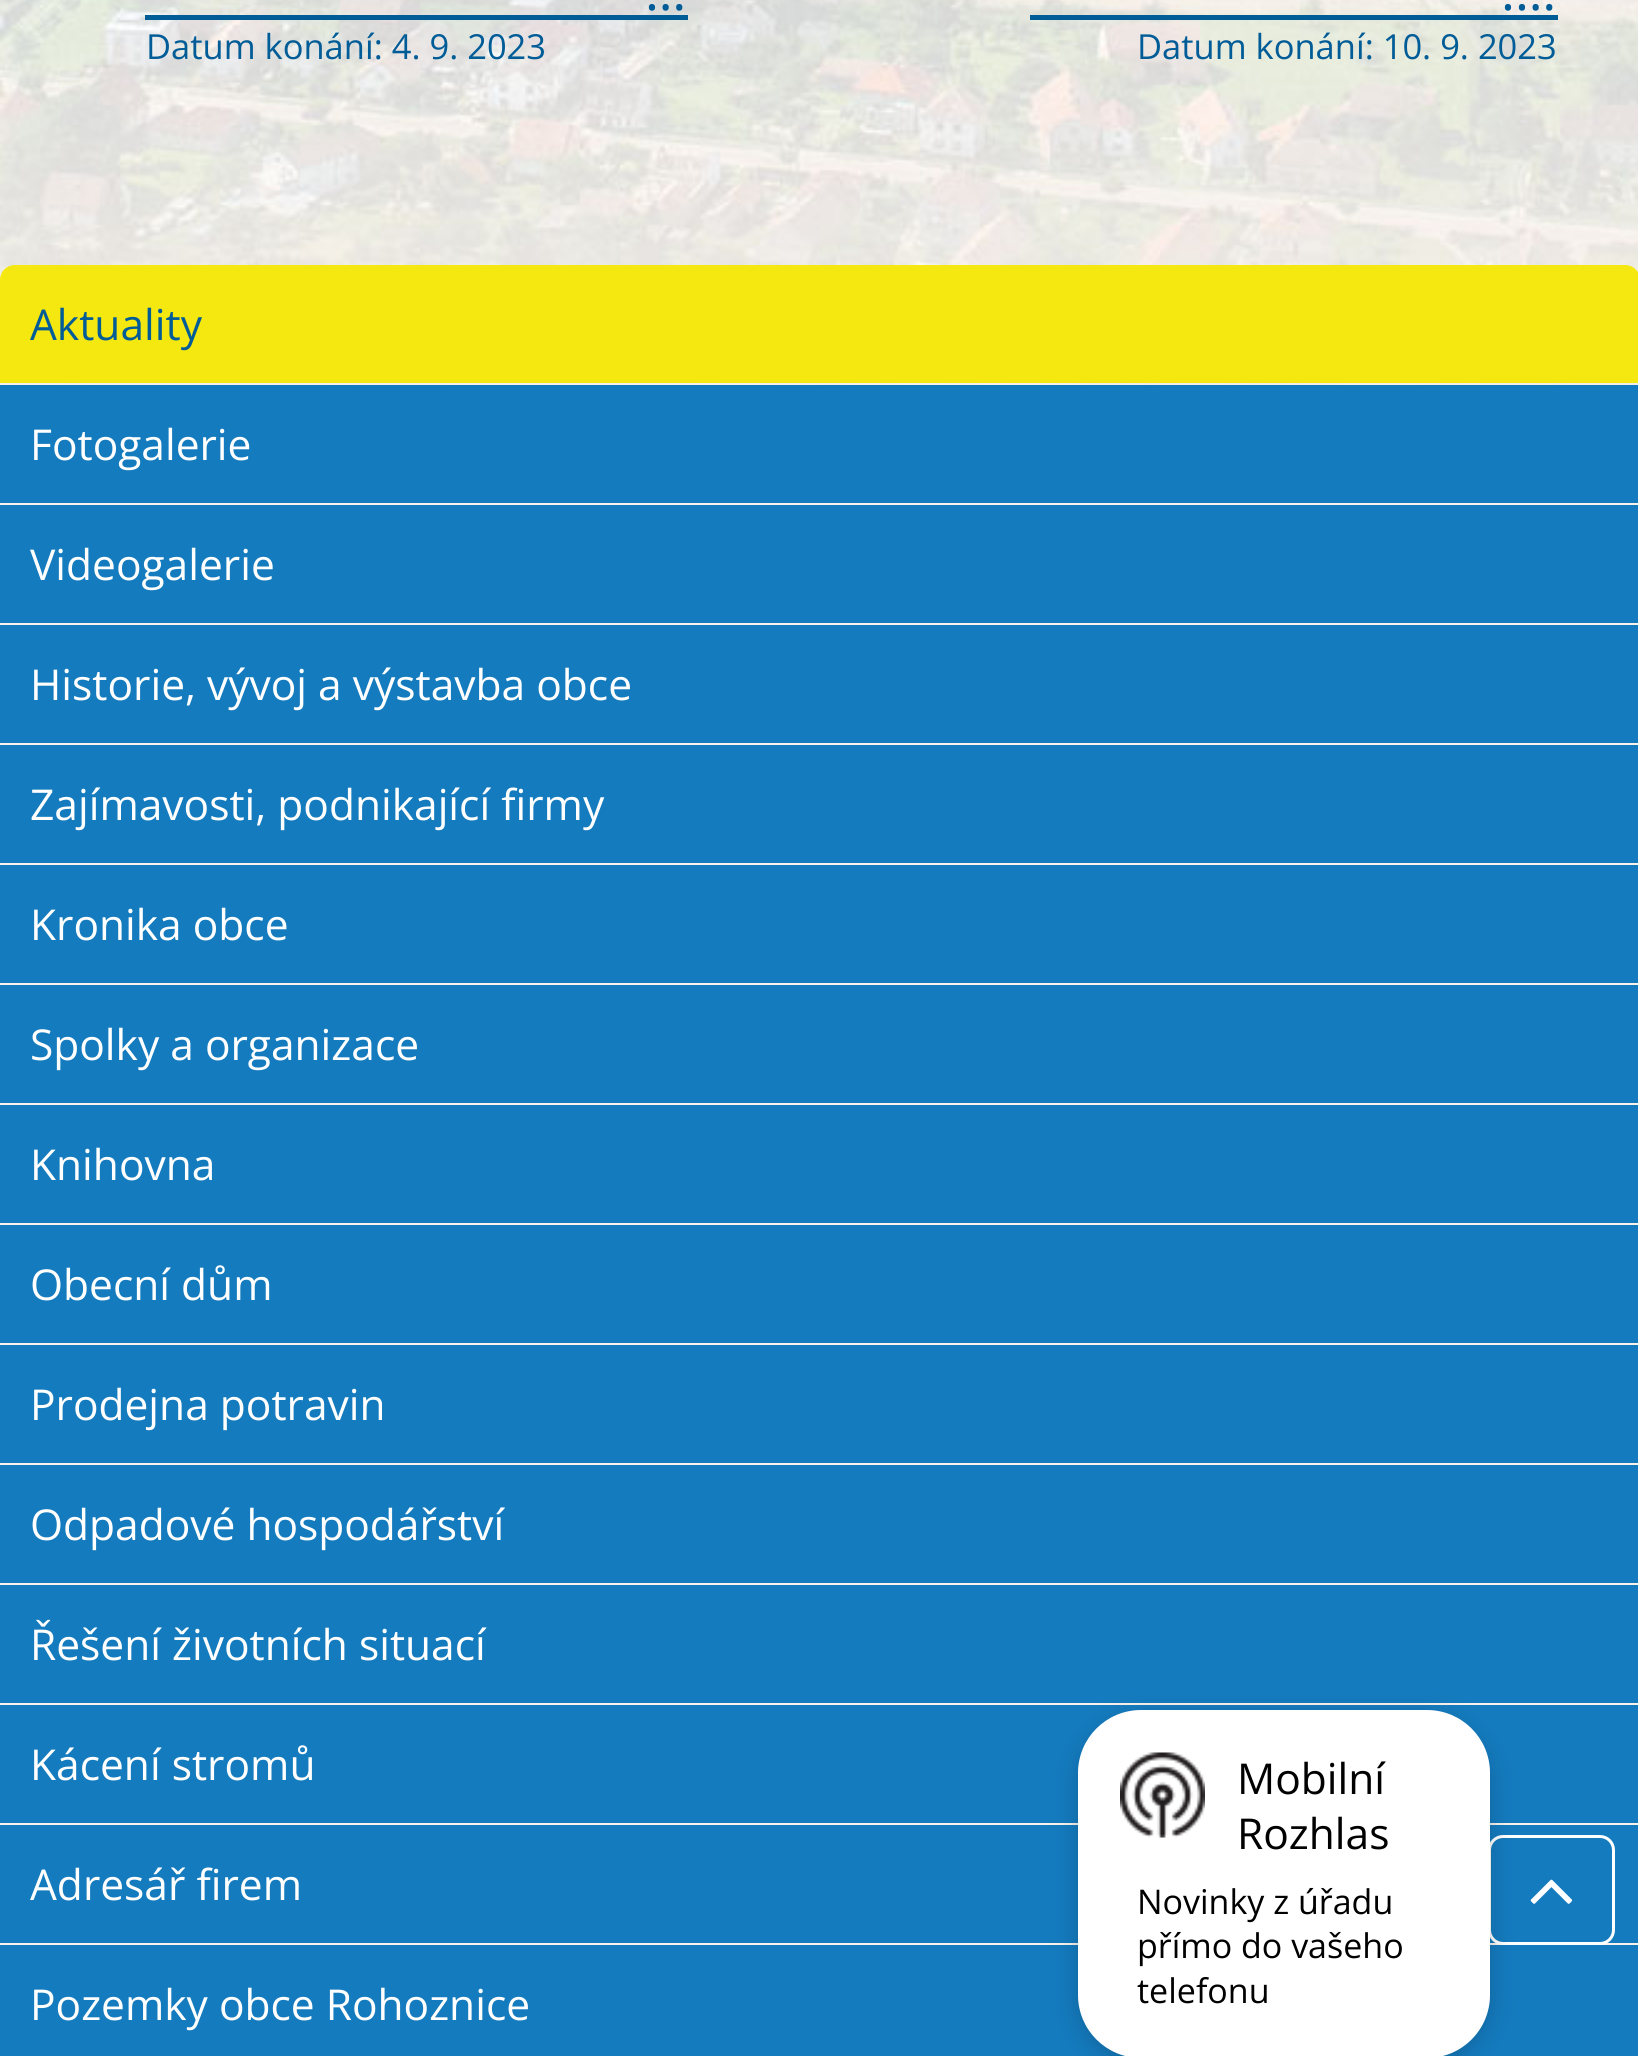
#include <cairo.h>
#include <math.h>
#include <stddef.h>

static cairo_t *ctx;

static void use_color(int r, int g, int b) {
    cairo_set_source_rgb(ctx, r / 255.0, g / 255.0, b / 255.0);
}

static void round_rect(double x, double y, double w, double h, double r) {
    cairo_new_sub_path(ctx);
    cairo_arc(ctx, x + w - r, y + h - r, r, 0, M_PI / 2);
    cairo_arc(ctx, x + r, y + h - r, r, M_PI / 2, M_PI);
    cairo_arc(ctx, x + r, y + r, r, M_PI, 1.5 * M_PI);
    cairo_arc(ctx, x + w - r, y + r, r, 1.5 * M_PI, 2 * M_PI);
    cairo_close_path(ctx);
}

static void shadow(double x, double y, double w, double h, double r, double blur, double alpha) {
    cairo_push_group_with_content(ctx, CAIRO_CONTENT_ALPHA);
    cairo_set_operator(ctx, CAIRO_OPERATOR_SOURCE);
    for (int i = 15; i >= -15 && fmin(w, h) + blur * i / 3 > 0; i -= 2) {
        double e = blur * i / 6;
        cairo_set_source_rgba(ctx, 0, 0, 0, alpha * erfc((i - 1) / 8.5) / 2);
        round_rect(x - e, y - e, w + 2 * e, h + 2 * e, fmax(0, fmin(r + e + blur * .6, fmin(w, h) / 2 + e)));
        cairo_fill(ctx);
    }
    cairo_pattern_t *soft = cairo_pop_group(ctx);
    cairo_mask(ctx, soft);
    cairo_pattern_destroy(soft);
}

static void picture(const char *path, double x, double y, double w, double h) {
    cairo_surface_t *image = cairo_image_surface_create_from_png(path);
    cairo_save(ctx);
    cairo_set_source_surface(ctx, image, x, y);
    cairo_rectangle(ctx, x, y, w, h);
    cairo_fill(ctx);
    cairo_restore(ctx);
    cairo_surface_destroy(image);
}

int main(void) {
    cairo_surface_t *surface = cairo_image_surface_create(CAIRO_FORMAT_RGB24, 1638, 2056);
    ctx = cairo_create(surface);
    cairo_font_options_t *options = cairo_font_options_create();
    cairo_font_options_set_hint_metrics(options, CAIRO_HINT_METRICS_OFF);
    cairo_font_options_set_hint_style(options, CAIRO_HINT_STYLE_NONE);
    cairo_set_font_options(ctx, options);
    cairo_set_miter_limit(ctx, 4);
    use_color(249, 242, 236);
    cairo_paint(ctx);
    picture("img1.png", 0, 0, 1638, 385);
    cairo_select_font_face(ctx, "Open Sans", CAIRO_FONT_SLANT_NORMAL, CAIRO_FONT_WEIGHT_NORMAL);
    cairo_set_font_size(ctx, 53);
    use_color(0, 92, 151);
    cairo_move_to(ctx, 645, 10);
    cairo_show_text(ctx, "…");
    cairo_rectangle(ctx, 145, 15, 543, 5);
    cairo_fill(ctx);
    cairo_set_font_size(ctx, 34.5);
    cairo_move_to(ctx, 146, 59);
    cairo_show_text(ctx, "Datum konání: 4. 9. 2023");
    cairo_set_font_size(ctx, 53);
    cairo_move_to(ctx, 1501, 10);
    cairo_show_text(ctx, ".…");
    cairo_rectangle(ctx, 1030, 15, 528, 5);
    cairo_fill(ctx);
    cairo_set_font_size(ctx, 34.5);
    cairo_move_to(ctx, 1137, 59);
    cairo_show_text(ctx, "Datum konání: 10. 9. 2023");
    use_color(245, 231, 16);
    cairo_new_path(ctx);
    cairo_move_to(ctx, 15, 265);
    cairo_line_to(ctx, 1625, 265);
    cairo_curve_to(ctx, 1633.5, 265, 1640, 271.5, 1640, 280);
    cairo_line_to(ctx, 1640, 383);
    cairo_line_to(ctx, 0, 383);
    cairo_line_to(ctx, 0, 280);
    cairo_curve_to(ctx, 0, 271.5, 6.5, 265, 15, 265);
    cairo_close_path(ctx);
    cairo_fill(ctx);
    cairo_set_font_size(ctx, 42.5);
    use_color(0, 92, 151);
    cairo_move_to(ctx, 30, 340);
    cairo_show_text(ctx, "Aktuality");
    use_color(20, 123, 190);
    cairo_rectangle(ctx, 0, 385, 1638, 118);
    cairo_fill(ctx);
    use_color(255, 255, 255);
    cairo_move_to(ctx, 30, 460);
    cairo_show_text(ctx, "Fotogalerie");
    use_color(20, 123, 190);
    cairo_rectangle(ctx, 0, 505, 1638, 118);
    cairo_fill(ctx);
    use_color(255, 255, 255);
    cairo_move_to(ctx, 30, 580);
    cairo_show_text(ctx, "Videogalerie");
    use_color(20, 123, 190);
    cairo_rectangle(ctx, 0, 625, 1638, 118);
    cairo_fill(ctx);
    use_color(255, 255, 255);
    cairo_move_to(ctx, 30, 700);
    cairo_show_text(ctx, "Historie, vývoj a výstavba obce");
    use_color(20, 123, 190);
    cairo_rectangle(ctx, 0, 745, 1638, 118);
    cairo_fill(ctx);
    use_color(255, 255, 255);
    cairo_move_to(ctx, 30, 820);
    cairo_show_text(ctx, "Zajímavosti, podnikající firmy");
    use_color(20, 123, 190);
    cairo_rectangle(ctx, 0, 865, 1638, 118);
    cairo_fill(ctx);
    use_color(255, 255, 255);
    cairo_move_to(ctx, 30, 940);
    cairo_show_text(ctx, "Kronika obce");
    use_color(20, 123, 190);
    cairo_rectangle(ctx, 0, 985, 1638, 118);
    cairo_fill(ctx);
    use_color(255, 255, 255);
    cairo_move_to(ctx, 30, 1060);
    cairo_show_text(ctx, "Spolky a organizace");
    use_color(20, 123, 190);
    cairo_rectangle(ctx, 0, 1105, 1638, 118);
    cairo_fill(ctx);
    use_color(255, 255, 255);
    cairo_move_to(ctx, 30, 1180);
    cairo_show_text(ctx, "Knihovna");
    use_color(20, 123, 190);
    cairo_rectangle(ctx, 0, 1225, 1638, 118);
    cairo_fill(ctx);
    use_color(255, 255, 255);
    cairo_move_to(ctx, 30, 1300);
    cairo_show_text(ctx, "Obecní dům");
    use_color(20, 123, 190);
    cairo_rectangle(ctx, 0, 1345, 1638, 118);
    cairo_fill(ctx);
    use_color(255, 255, 255);
    cairo_move_to(ctx, 30, 1420);
    cairo_show_text(ctx, "Prodejna potravin");
    use_color(20, 123, 190);
    cairo_rectangle(ctx, 0, 1465, 1638, 118);
    cairo_fill(ctx);
    use_color(255, 255, 255);
    cairo_move_to(ctx, 30, 1540);
    cairo_show_text(ctx, "Odpadové hospodářství");
    use_color(20, 123, 190);
    cairo_rectangle(ctx, 0, 1585, 1638, 118);
    cairo_fill(ctx);
    use_color(255, 255, 255);
    cairo_move_to(ctx, 30, 1660);
    cairo_show_text(ctx, "Řešení životních situací");
    use_color(20, 123, 190);
    cairo_rectangle(ctx, 0, 1705, 1638, 118);
    cairo_fill(ctx);
    use_color(255, 255, 255);
    cairo_move_to(ctx, 30, 1780);
    cairo_show_text(ctx, "Kácení stromů");
    use_color(20, 123, 190);
    cairo_rectangle(ctx, 0, 1825, 1638, 118);
    cairo_fill(ctx);
    use_color(255, 255, 255);
    cairo_move_to(ctx, 30, 1900);
    cairo_show_text(ctx, "Adresář firem");
    use_color(20, 123, 190);
    cairo_rectangle(ctx, 0, 1945, 1638, 111);
    cairo_fill(ctx);
    use_color(255, 255, 255);
    cairo_move_to(ctx, 30, 2020);
    cairo_show_text(ctx, "Pozemky obce Rohoznice");
    use_color(20, 123, 190);
    round_rect(1489.5, 1836.5, 124, 107, 13.5);
    cairo_fill_preserve(ctx);
    use_color(255, 255, 255);
    cairo_set_line_width(ctx, 3);
    cairo_stroke(ctx);
    use_color(0, 0, 0);
    shadow(1078, 1718, 412, 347, 63, 12.5, 0.2);
    use_color(255, 255, 255);
    round_rect(1078, 1710, 412, 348, 63);
    cairo_fill(ctx);
    picture("img2.png", 1120, 1752, 85, 86);
    use_color(0, 0, 0);
    cairo_move_to(ctx, 1237, 1794);
    cairo_show_text(ctx, "Mobilní");
    cairo_move_to(ctx, 1237, 1849);
    cairo_show_text(ctx, "Rozhlas");
    cairo_set_font_size(ctx, 34);
    cairo_move_to(ctx, 1137, 1914);
    cairo_show_text(ctx, "Novinky z úřadu");
    cairo_move_to(ctx, 1137, 1958);
    cairo_show_text(ctx, "přímo do vašeho");
    cairo_move_to(ctx, 1137, 2003);
    cairo_show_text(ctx, "telefonu");
    picture("img3.png", 1530, 1879, 43, 25);
    cairo_surface_write_to_png(surface, "result.png");
    cairo_font_options_destroy(options);
    cairo_destroy(ctx);
    cairo_surface_destroy(surface);
    return 0;
}
